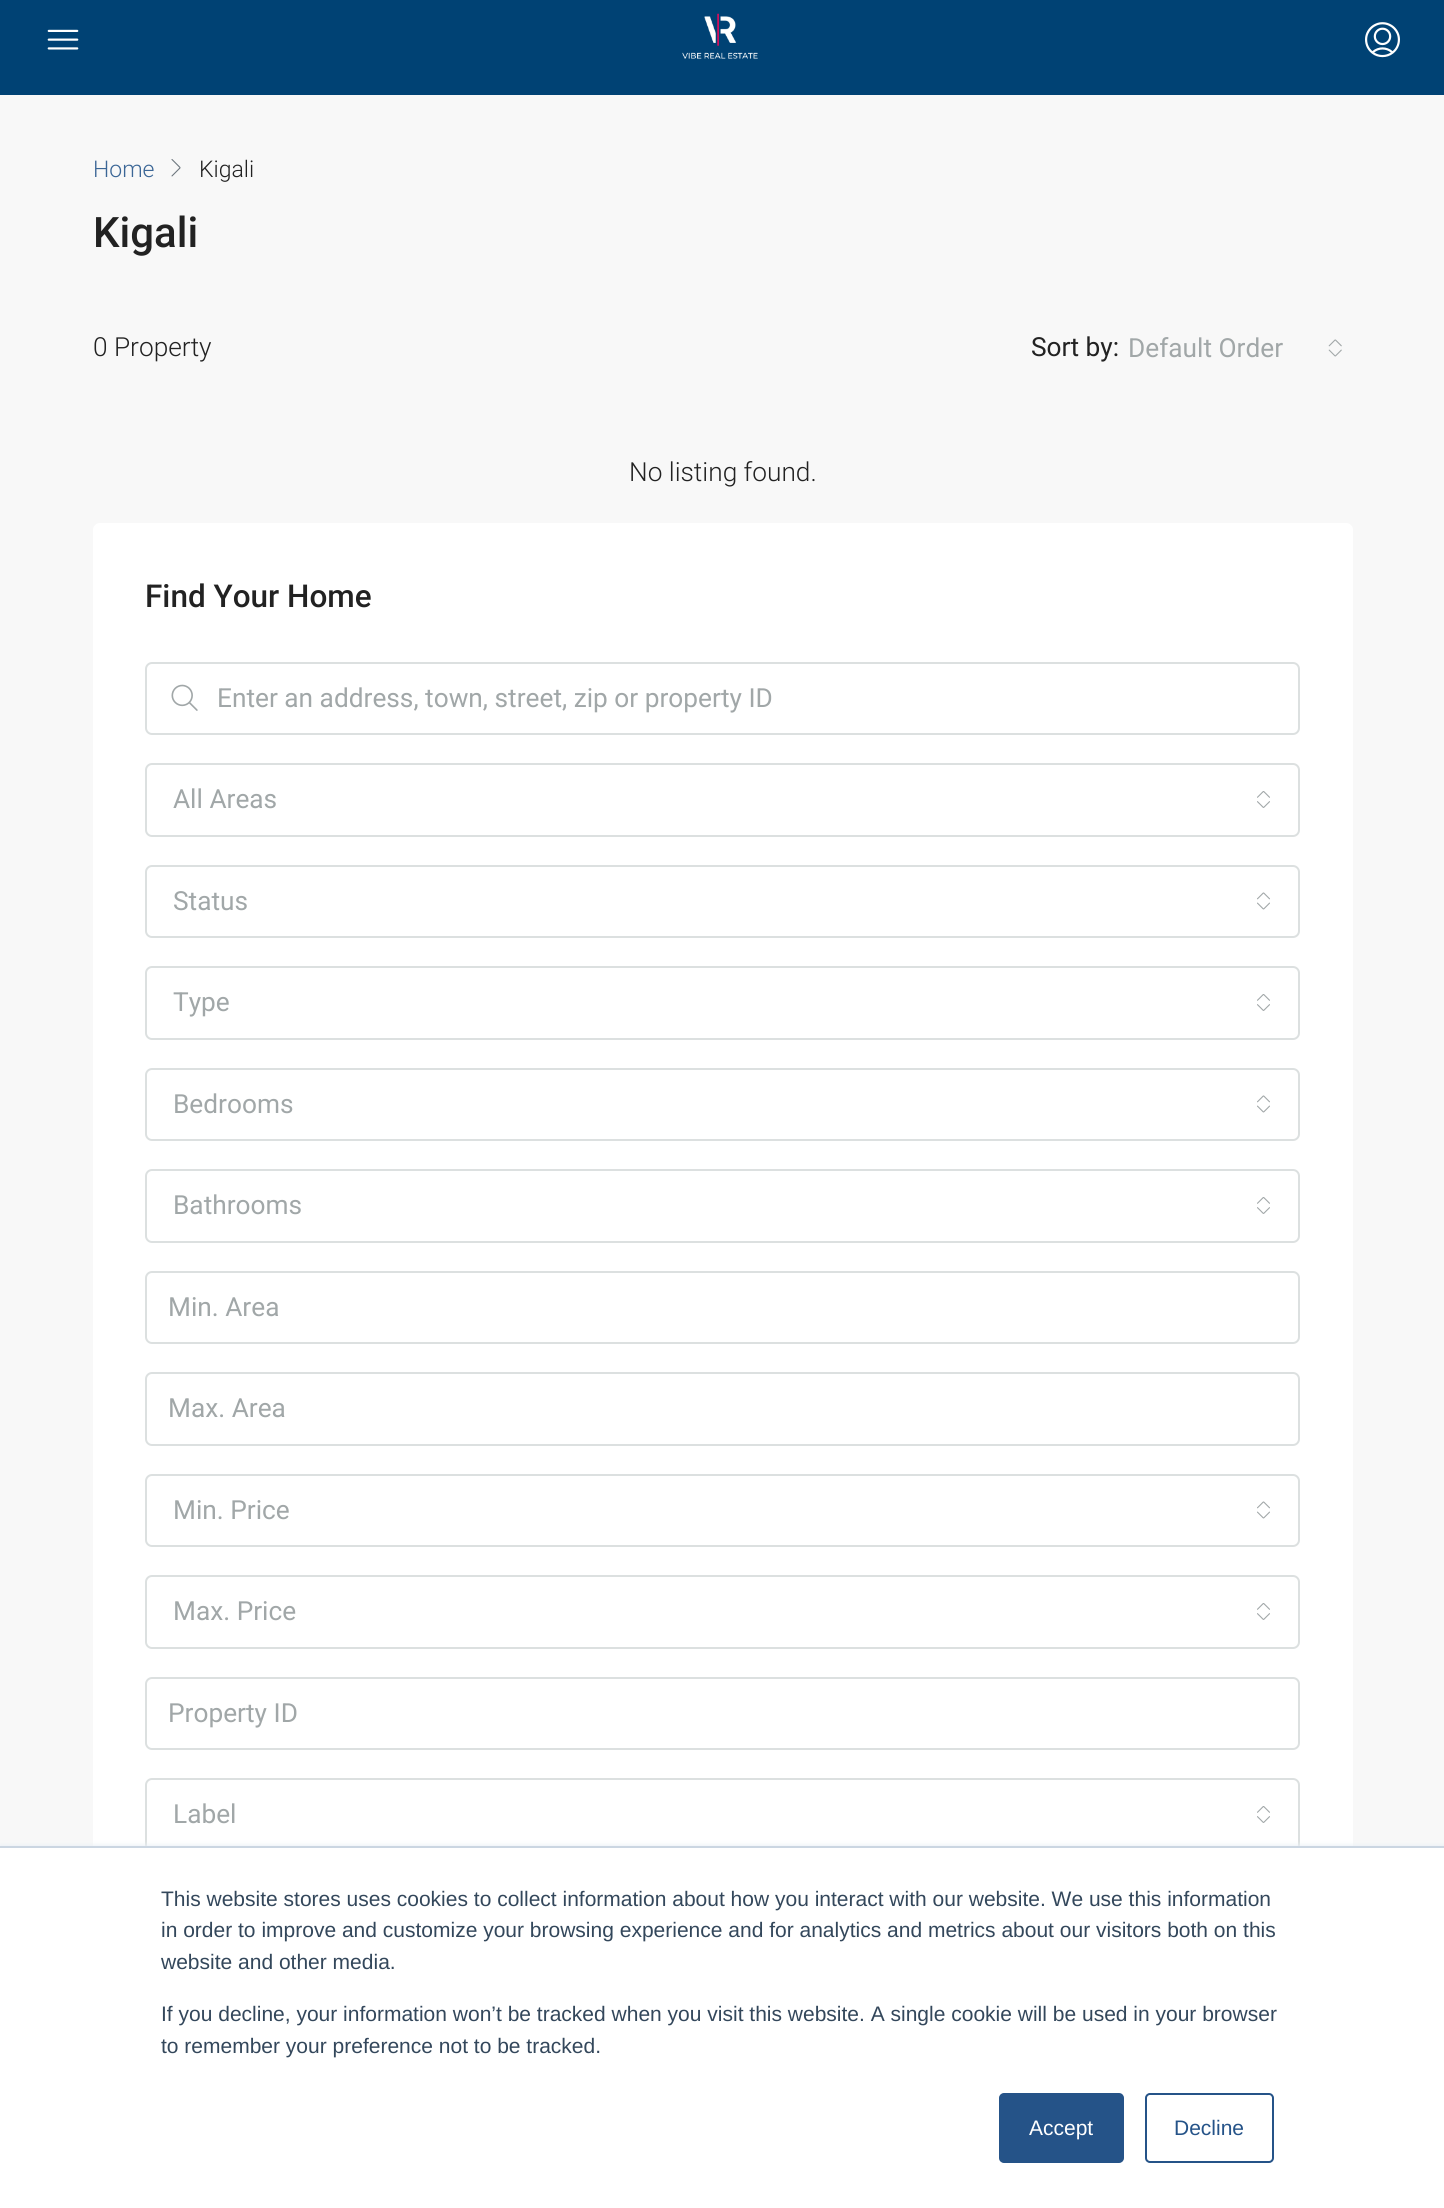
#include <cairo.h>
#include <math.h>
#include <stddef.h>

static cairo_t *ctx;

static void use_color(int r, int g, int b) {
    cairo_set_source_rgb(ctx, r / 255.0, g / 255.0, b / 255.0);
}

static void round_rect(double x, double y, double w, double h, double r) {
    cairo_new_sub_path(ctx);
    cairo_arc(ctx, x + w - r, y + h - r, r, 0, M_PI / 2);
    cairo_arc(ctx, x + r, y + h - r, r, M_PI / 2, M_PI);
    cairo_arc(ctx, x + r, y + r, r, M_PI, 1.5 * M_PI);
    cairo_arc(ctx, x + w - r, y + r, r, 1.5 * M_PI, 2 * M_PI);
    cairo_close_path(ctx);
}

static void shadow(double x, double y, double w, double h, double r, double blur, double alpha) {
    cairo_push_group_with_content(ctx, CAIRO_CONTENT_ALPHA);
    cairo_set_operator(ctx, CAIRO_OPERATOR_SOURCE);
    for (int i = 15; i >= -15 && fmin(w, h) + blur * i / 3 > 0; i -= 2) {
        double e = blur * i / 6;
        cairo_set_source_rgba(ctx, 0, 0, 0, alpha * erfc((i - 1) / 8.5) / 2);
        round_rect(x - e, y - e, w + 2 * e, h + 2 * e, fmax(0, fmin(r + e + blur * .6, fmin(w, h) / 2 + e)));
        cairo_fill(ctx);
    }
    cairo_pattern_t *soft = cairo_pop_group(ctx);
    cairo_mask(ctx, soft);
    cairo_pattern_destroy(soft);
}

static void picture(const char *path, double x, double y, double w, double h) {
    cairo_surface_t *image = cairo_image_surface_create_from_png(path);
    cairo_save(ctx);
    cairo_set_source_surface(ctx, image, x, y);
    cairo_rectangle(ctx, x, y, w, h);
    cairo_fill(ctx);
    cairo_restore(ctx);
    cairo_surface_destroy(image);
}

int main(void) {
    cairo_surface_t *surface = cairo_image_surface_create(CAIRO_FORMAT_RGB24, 1444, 2208);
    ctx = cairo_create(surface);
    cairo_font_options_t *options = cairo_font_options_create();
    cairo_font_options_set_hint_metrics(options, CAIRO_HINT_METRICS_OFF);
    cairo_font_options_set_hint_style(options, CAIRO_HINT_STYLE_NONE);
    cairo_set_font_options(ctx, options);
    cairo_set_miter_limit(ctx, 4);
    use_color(248, 248, 248);
    cairo_paint(ctx);
    use_color(0, 66, 116);
    cairo_rectangle(ctx, 0, 0, 1444, 95);
    cairo_fill(ctx);
    picture("img1.png", 47, 29, 32, 21);
    picture("img2.png", 682, 13, 76, 46);
    picture("img3.png", 1365, 22, 35, 36);
    cairo_select_font_face(ctx, "Roboto Light", CAIRO_FONT_SLANT_NORMAL, CAIRO_FONT_WEIGHT_NORMAL);
    cairo_set_font_size(ctx, 23);
    use_color(59, 102, 150);
    cairo_move_to(ctx, 93, 177);
    cairo_show_text(ctx, "Home");
    picture("img4.png", 171, 159, 10, 18);
    use_color(34, 34, 34);
    cairo_move_to(ctx, 199, 177);
    cairo_show_text(ctx, "Kigali");
    cairo_select_font_face(ctx, "Roboto Medium", CAIRO_FONT_SLANT_NORMAL, CAIRO_FONT_WEIGHT_NORMAL);
    cairo_set_font_size(ctx, 42);
    cairo_move_to(ctx, 93, 247);
    cairo_show_text(ctx, "Kigali");
    cairo_select_font_face(ctx, "Roboto Light", CAIRO_FONT_SLANT_NORMAL, CAIRO_FONT_WEIGHT_NORMAL);
    cairo_set_font_size(ctx, 26.25);
    cairo_move_to(ctx, 93, 356);
    cairo_show_text(ctx, "0 Property");
    cairo_select_font_face(ctx, "Roboto", CAIRO_FONT_SLANT_NORMAL, CAIRO_FONT_WEIGHT_NORMAL);
    cairo_move_to(ctx, 1031, 356);
    cairo_show_text(ctx, "Sort by:");
    use_color(161, 167, 168);
    cairo_move_to(ctx, 1128, 357);
    cairo_show_text(ctx, "Default Order");
    picture("img5.png", 1328, 339, 14, 18);
    cairo_select_font_face(ctx, "Roboto Light", CAIRO_FONT_SLANT_NORMAL, CAIRO_FONT_WEIGHT_NORMAL);
    use_color(34, 34, 34);
    cairo_move_to(ctx, 629, 481);
    cairo_show_text(ctx, "No listing found.");
    use_color(255, 255, 255);
    round_rect(93, 523, 1260, 1483, 7);
    cairo_fill(ctx);
    cairo_select_font_face(ctx, "Roboto Medium", CAIRO_FONT_SLANT_NORMAL, CAIRO_FONT_WEIGHT_NORMAL);
    cairo_set_font_size(ctx, 31.5);
    use_color(34, 34, 34);
    cairo_move_to(ctx, 145, 607);
    cairo_show_text(ctx, "Find Your Home");
    round_rect(146, 663, 1153, 71, 6);
    use_color(220, 224, 224);
    cairo_stroke(ctx);
    picture("img6.png", 171, 684, 27, 27);
    cairo_select_font_face(ctx, "Roboto", CAIRO_FONT_SLANT_NORMAL, CAIRO_FONT_WEIGHT_NORMAL);
    cairo_set_font_size(ctx, 26.25);
    use_color(161, 167, 168);
    cairo_move_to(ctx, 217, 707);
    cairo_show_text(ctx, "Enter an address, town, street, zip or property ID");
    round_rect(146, 764, 1153, 72, 6);
    use_color(220, 224, 224);
    cairo_stroke(ctx);
    use_color(161, 167, 168);
    cairo_move_to(ctx, 173, 808);
    cairo_show_text(ctx, "All Areas");
    picture("img7.png", 1257, 791, 13, 17);
    round_rect(146, 866, 1153, 71, 6);
    use_color(220, 224, 224);
    cairo_stroke(ctx);
    use_color(161, 167, 168);
    cairo_move_to(ctx, 173, 910);
    cairo_show_text(ctx, "Status");
    picture("img8.png", 1257, 892, 13, 18);
    round_rect(146, 967, 1153, 72, 6);
    use_color(220, 224, 224);
    cairo_stroke(ctx);
    use_color(161, 167, 168);
    cairo_move_to(ctx, 173, 1011);
    cairo_show_text(ctx, "Type");
    picture("img7.png", 1257, 994, 13, 17);
    round_rect(146, 1069, 1153, 71, 6);
    use_color(220, 224, 224);
    cairo_stroke(ctx);
    use_color(161, 167, 168);
    cairo_move_to(ctx, 173, 1113);
    cairo_show_text(ctx, "Bedrooms");
    picture("img8.png", 1257, 1095, 13, 18);
    round_rect(146, 1170, 1153, 72, 6);
    use_color(220, 224, 224);
    cairo_stroke(ctx);
    use_color(161, 167, 168);
    cairo_move_to(ctx, 173, 1214);
    cairo_show_text(ctx, "Bathrooms");
    picture("img7.png", 1257, 1197, 13, 17);
    round_rect(146, 1272, 1153, 71, 6);
    use_color(220, 224, 224);
    cairo_stroke(ctx);
    use_color(161, 167, 168);
    cairo_move_to(ctx, 168, 1316);
    cairo_show_text(ctx, "Min. Area");
    round_rect(146, 1373, 1153, 72, 6);
    use_color(220, 224, 224);
    cairo_stroke(ctx);
    use_color(161, 167, 168);
    cairo_move_to(ctx, 168, 1417);
    cairo_show_text(ctx, "Max. Area");
    round_rect(146, 1475, 1153, 71, 6);
    use_color(220, 224, 224);
    cairo_stroke(ctx);
    use_color(161, 167, 168);
    cairo_move_to(ctx, 173, 1519);
    cairo_show_text(ctx, "Min. Price");
    picture("img8.png", 1257, 1501, 13, 18);
    round_rect(146, 1576, 1153, 72, 6);
    use_color(220, 224, 224);
    cairo_stroke(ctx);
    use_color(161, 167, 168);
    cairo_move_to(ctx, 173, 1620);
    cairo_show_text(ctx, "Max. Price");
    picture("img7.png", 1257, 1603, 13, 17);
    round_rect(146, 1678, 1153, 71, 6);
    use_color(220, 224, 224);
    cairo_stroke(ctx);
    use_color(161, 167, 168);
    cairo_move_to(ctx, 168, 1722);
    cairo_show_text(ctx, "Property ID");
    round_rect(146, 1779, 1153, 72, 6);
    use_color(220, 224, 224);
    cairo_stroke(ctx);
    use_color(161, 167, 168);
    cairo_move_to(ctx, 173, 1823);
    cairo_show_text(ctx, "Label");
    picture("img7.png", 1257, 1806, 13, 17);
    use_color(234, 240, 246);
    shadow(0, 1845, 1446, 362, 0, 2.5, 1);
    use_color(255, 255, 255);
    cairo_rectangle(ctx, 0, 1848, 1444, 360);
    cairo_fill(ctx);
    use_color(203, 214, 226);
    cairo_rectangle(ctx, 0, 1846, 1444, 2);
    cairo_fill(ctx);
    cairo_select_font_face(ctx, "Liberation Sans", CAIRO_FONT_SLANT_NORMAL, CAIRO_FONT_WEIGHT_NORMAL);
    cairo_set_font_size(ctx, 21);
    use_color(51, 71, 91);
    cairo_move_to(ctx, 161, 1906);
    cairo_show_text(ctx, "This website stores uses cookies to collect information about how you interact with our website. We use this information");
    cairo_move_to(ctx, 161, 1937);
    cairo_show_text(ctx, "in order to improve and customize your browsing experience and for analytics and metrics about our visitors both on this");
    cairo_move_to(ctx, 161, 1969);
    cairo_show_text(ctx, "website and other media.");
    cairo_move_to(ctx, 161, 2021);
    cairo_show_text(ctx, "If you decline, your information won’t be tracked when you visit this website. A single cookie will be used in your browser");
    cairo_move_to(ctx, 161, 2053);
    cairo_show_text(ctx, "to remember your preference not to be tracked.");
    use_color(37, 83, 136);
    round_rect(1000, 2094, 123, 68, 4);
    cairo_fill_preserve(ctx);
    cairo_stroke(ctx);
    use_color(255, 255, 255);
    cairo_move_to(ctx, 1029, 2135);
    cairo_show_text(ctx, "Accept");
    round_rect(1146, 2094, 127, 68, 4);
    use_color(37, 83, 136);
    cairo_stroke(ctx);
    cairo_move_to(ctx, 1174, 2135);
    cairo_show_text(ctx, "Decline");
    cairo_surface_write_to_png(surface, "result.png");
    cairo_font_options_destroy(options);
    cairo_destroy(ctx);
    cairo_surface_destroy(surface);
    return 0;
}
